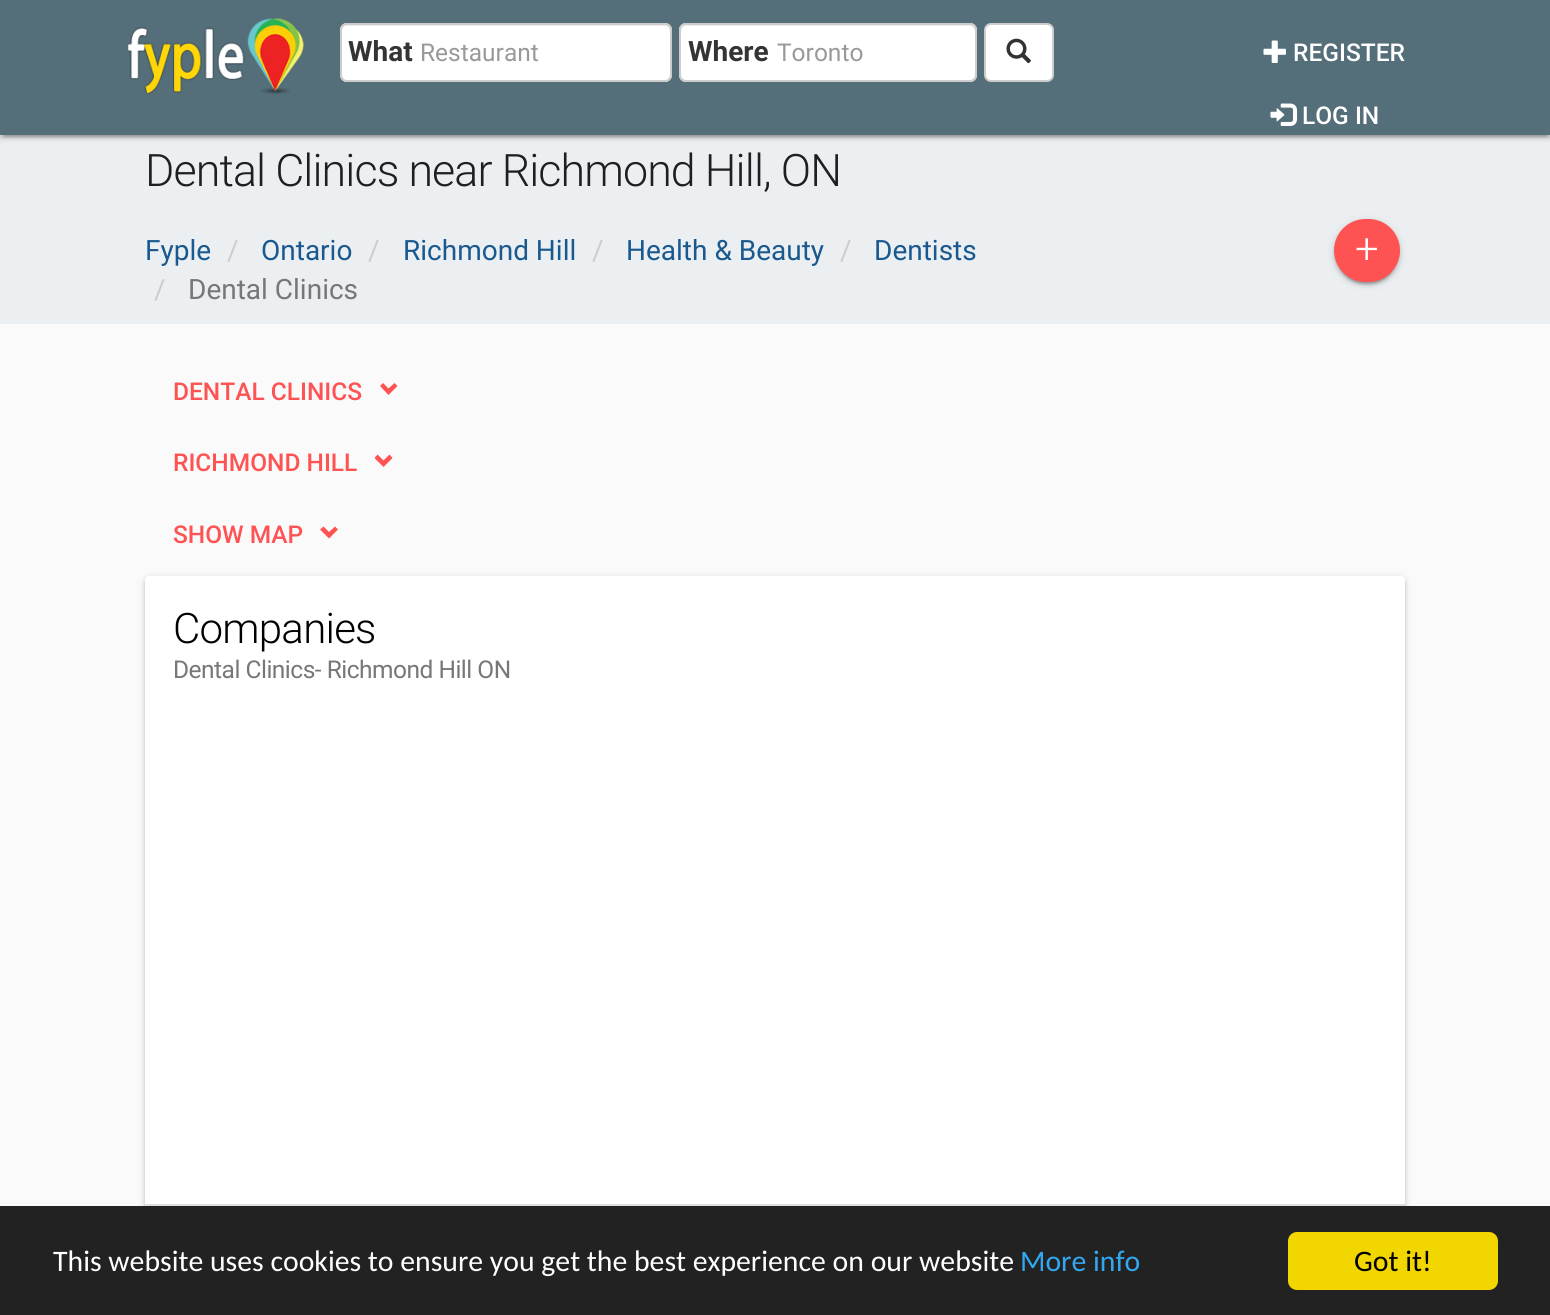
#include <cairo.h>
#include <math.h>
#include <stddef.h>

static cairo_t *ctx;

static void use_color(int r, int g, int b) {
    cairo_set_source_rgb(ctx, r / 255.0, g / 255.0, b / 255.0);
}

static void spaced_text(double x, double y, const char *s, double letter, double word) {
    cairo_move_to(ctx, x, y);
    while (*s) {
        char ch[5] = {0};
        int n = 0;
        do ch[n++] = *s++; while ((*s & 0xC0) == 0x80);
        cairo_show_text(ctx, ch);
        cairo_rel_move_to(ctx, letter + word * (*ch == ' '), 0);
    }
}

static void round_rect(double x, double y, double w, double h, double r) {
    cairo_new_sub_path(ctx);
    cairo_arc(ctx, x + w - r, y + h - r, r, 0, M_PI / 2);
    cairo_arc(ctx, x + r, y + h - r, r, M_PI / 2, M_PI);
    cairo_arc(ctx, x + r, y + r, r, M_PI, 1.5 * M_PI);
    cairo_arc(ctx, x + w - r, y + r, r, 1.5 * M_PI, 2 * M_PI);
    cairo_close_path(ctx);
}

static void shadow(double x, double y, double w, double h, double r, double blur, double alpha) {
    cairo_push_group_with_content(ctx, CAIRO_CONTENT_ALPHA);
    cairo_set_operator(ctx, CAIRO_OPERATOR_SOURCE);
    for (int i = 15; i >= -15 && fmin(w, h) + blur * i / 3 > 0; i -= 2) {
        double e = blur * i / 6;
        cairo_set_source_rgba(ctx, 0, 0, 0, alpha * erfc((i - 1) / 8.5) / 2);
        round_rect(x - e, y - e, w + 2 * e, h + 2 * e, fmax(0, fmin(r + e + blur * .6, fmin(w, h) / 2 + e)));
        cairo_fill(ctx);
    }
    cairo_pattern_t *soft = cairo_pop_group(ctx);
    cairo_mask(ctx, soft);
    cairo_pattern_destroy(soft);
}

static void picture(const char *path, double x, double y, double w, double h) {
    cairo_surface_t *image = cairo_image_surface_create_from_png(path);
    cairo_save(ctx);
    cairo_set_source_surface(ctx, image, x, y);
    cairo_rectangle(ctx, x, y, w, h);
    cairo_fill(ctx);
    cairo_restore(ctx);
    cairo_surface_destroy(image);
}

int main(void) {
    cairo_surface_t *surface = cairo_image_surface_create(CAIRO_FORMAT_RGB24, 1550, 1315);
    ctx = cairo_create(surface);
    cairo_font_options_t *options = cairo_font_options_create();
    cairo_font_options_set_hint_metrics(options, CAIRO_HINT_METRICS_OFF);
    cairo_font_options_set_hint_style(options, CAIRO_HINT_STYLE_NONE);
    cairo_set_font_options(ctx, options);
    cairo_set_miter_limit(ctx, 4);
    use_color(250, 250, 250);
    cairo_paint(ctx);
    use_color(236, 239, 241);
    cairo_rectangle(ctx, 0, 135, 1550, 189);
    cairo_fill(ctx);
    use_color(0, 0, 0);
    shadow(0, 2, 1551, 135, 0, 4.5, 0.12);
    shadow(4, 9, 1543, 128, 0, 1, 0.2);
    shadow(0, 4, 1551, 134, 0, 2, 0.14);
    use_color(84, 110, 122);
    cairo_rectangle(ctx, 0, 0, 1550, 135);
    cairo_fill(ctx);
    picture("img1.png", 126, 18, 178, 76);
    use_color(255, 255, 255);
    round_rect(340, 23, 332, 59, 7);
    cairo_fill(ctx);
    use_color(236, 236, 236);
    cairo_new_path(ctx);
    cairo_move_to(ctx, 346, 26);
    cairo_line_to(ctx, 665, 26);
    cairo_curve_to(ctx, 668, 26, 670, 29, 670, 32);
    cairo_line_to(ctx, 670, 30);
    cairo_curve_to(ctx, 670, 27, 668, 25, 665, 25);
    cairo_line_to(ctx, 346, 25);
    cairo_curve_to(ctx, 343, 25, 341, 27, 341, 30);
    cairo_line_to(ctx, 341, 32);
    cairo_curve_to(ctx, 341, 29, 344, 26, 346, 26);
    cairo_close_path(ctx);
    cairo_fill(ctx);
    round_rect(341, 24, 330, 57, 6);
    use_color(204, 204, 204);
    cairo_stroke(ctx);
    cairo_select_font_face(ctx, "Roboto", CAIRO_FONT_SLANT_NORMAL, CAIRO_FONT_WEIGHT_BOLD);
    cairo_set_font_size(ctx, 28);
    use_color(52, 52, 52);
    cairo_move_to(ctx, 348, 61);
    cairo_show_text(ctx, "What");
    cairo_select_font_face(ctx, "Roboto", CAIRO_FONT_SLANT_NORMAL, CAIRO_FONT_WEIGHT_NORMAL);
    cairo_set_font_size(ctx, 24.5);
    use_color(153, 153, 153);
    cairo_move_to(ctx, 420, 61);
    cairo_show_text(ctx, "Restaurant");
    use_color(255, 255, 255);
    round_rect(679, 23, 298, 59, 7);
    cairo_fill(ctx);
    use_color(236, 236, 236);
    cairo_new_path(ctx);
    cairo_move_to(ctx, 686, 26);
    cairo_line_to(ctx, 970, 26);
    cairo_curve_to(ctx, 972, 26, 975, 29, 975, 32);
    cairo_curve_to(ctx, 975, 29, 974, 25, 970, 25);
    cairo_line_to(ctx, 685, 25);
    cairo_curve_to(ctx, 681, 26, 681, 29, 681, 32);
    cairo_curve_to(ctx, 681, 29, 683, 26, 686, 26);
    cairo_close_path(ctx);
    cairo_fill(ctx);
    round_rect(680, 24, 296, 57, 6);
    use_color(204, 204, 204);
    cairo_stroke(ctx);
    cairo_select_font_face(ctx, "Roboto", CAIRO_FONT_SLANT_NORMAL, CAIRO_FONT_WEIGHT_BOLD);
    cairo_set_font_size(ctx, 28);
    use_color(52, 52, 52);
    cairo_move_to(ctx, 688, 61);
    cairo_show_text(ctx, "Where");
    cairo_select_font_face(ctx, "Roboto", CAIRO_FONT_SLANT_NORMAL, CAIRO_FONT_WEIGHT_NORMAL);
    cairo_set_font_size(ctx, 24.5);
    use_color(153, 153, 153);
    cairo_move_to(ctx, 777, 61);
    cairo_show_text(ctx, "Toronto");
    use_color(255, 255, 255);
    round_rect(985, 24, 68, 57, 6);
    cairo_fill_preserve(ctx);
    use_color(204, 204, 204);
    cairo_stroke(ctx);
    picture("img2.png", 1006, 38, 25, 26);
    picture("img3.png", 1263, 40, 23, 23);
    cairo_select_font_face(ctx, "Roboto Medium", CAIRO_FONT_SLANT_NORMAL, CAIRO_FONT_WEIGHT_NORMAL);
    use_color(255, 255, 255);
    cairo_move_to(ctx, 1293, 61);
    cairo_show_text(ctx, "REGISTER");
    picture("img4.png", 1270, 103, 28, 23);
    cairo_move_to(ctx, 1302, 124);
    cairo_show_text(ctx, "LOG IN");
    cairo_select_font_face(ctx, "Roboto Light", CAIRO_FONT_SLANT_NORMAL, CAIRO_FONT_WEIGHT_NORMAL);
    cairo_set_font_size(ctx, 44.75);
    use_color(31, 31, 31);
    spaced_text(145, 186, "Dental Clinics near Richmond Hill, ON", -0.9, 0);
    cairo_select_font_face(ctx, "Roboto", CAIRO_FONT_SLANT_NORMAL, CAIRO_FONT_WEIGHT_NORMAL);
    cairo_set_font_size(ctx, 28);
    use_color(25, 89, 144);
    cairo_move_to(ctx, 145, 260);
    cairo_show_text(ctx, "Fyple");
    use_color(204, 204, 204);
    cairo_move_to(ctx, 227, 260);
    cairo_show_text(ctx, "/");
    use_color(25, 89, 144);
    cairo_move_to(ctx, 261, 260);
    cairo_show_text(ctx, "Ontario");
    use_color(204, 204, 204);
    cairo_move_to(ctx, 368, 260);
    cairo_show_text(ctx, "/");
    use_color(25, 89, 144);
    cairo_move_to(ctx, 403, 260);
    cairo_show_text(ctx, "Richmond Hill");
    use_color(204, 204, 204);
    cairo_move_to(ctx, 592, 260);
    cairo_show_text(ctx, "/");
    use_color(25, 89, 144);
    cairo_move_to(ctx, 626, 260);
    cairo_show_text(ctx, "Health & Beauty");
    use_color(204, 204, 204);
    cairo_move_to(ctx, 840, 260);
    cairo_show_text(ctx, "/");
    use_color(25, 89, 144);
    cairo_move_to(ctx, 874, 260);
    cairo_show_text(ctx, "Dentists");
    use_color(204, 204, 204);
    cairo_move_to(ctx, 154, 299);
    cairo_show_text(ctx, "/");
    use_color(119, 119, 119);
    cairo_move_to(ctx, 188, 299);
    cairo_show_text(ctx, "Dental Clinics");
    use_color(0, 0, 0);
    shadow(1334, 221, 66, 63, 31.5, 4.5, 0.12);
    shadow(1337, 228, 60, 56, 28, 1, 0.2);
    shadow(1334, 222, 66, 63, 31.5, 2, 0.14);
    use_color(255, 82, 82);
    round_rect(1334, 219, 66, 63, 31.5);
    cairo_fill(ctx);
    cairo_select_font_face(ctx, "Roboto Light", CAIRO_FONT_SLANT_NORMAL, CAIRO_FONT_WEIGHT_NORMAL);
    cairo_set_font_size(ctx, 42);
    use_color(255, 255, 255);
    cairo_move_to(ctx, 1355, 263);
    cairo_show_text(ctx, "+");
    cairo_select_font_face(ctx, "Roboto Medium", CAIRO_FONT_SLANT_NORMAL, CAIRO_FONT_WEIGHT_NORMAL);
    cairo_set_font_size(ctx, 24.5);
    use_color(255, 82, 82);
    cairo_move_to(ctx, 173, 400);
    cairo_show_text(ctx, "DENTAL CLINICS");
    cairo_new_path(ctx);
    cairo_move_to(ctx, 397.5, 386);
    cairo_line_to(ctx, 388.5, 395);
    cairo_line_to(ctx, 380, 386);
    cairo_line_to(ctx, 383, 383);
    cairo_line_to(ctx, 388.5, 388.5);
    cairo_line_to(ctx, 394.5, 383);
    cairo_close_path(ctx);
    cairo_fill(ctx);
    cairo_move_to(ctx, 173, 471);
    cairo_show_text(ctx, "RICHMOND HILL");
    cairo_new_path(ctx);
    cairo_move_to(ctx, 392.5, 458);
    cairo_line_to(ctx, 383.5, 467);
    cairo_line_to(ctx, 374.5, 458);
    cairo_line_to(ctx, 377.5, 454.5);
    cairo_line_to(ctx, 383.5, 460.5);
    cairo_line_to(ctx, 389.5, 454.5);
    cairo_close_path(ctx);
    cairo_fill(ctx);
    cairo_move_to(ctx, 173, 543);
    cairo_show_text(ctx, "SHOW MAP");
    cairo_new_path(ctx);
    cairo_move_to(ctx, 338, 529.5);
    cairo_line_to(ctx, 329, 538.5);
    cairo_line_to(ctx, 320, 529.5);
    cairo_line_to(ctx, 323.5, 526.5);
    cairo_line_to(ctx, 329, 532);
    cairo_line_to(ctx, 335, 526.5);
    cairo_close_path(ctx);
    cairo_fill(ctx);
    use_color(0, 0, 0);
    shadow(145, 578, 1260, 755, 4, 4.5, 0.12);
    shadow(145, 579, 1260, 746, 4, 2, 0.14);
    use_color(255, 255, 255);
    round_rect(145, 576, 1260, 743, 4);
    cairo_fill(ctx);
    cairo_select_font_face(ctx, "Roboto Light", CAIRO_FONT_SLANT_NORMAL, CAIRO_FONT_WEIGHT_NORMAL);
    cairo_set_font_size(ctx, 42);
    use_color(0, 0, 0);
    spaced_text(173, 643, "Companies", -0.75, 0);
    cairo_select_font_face(ctx, "Roboto", CAIRO_FONT_SLANT_NORMAL, CAIRO_FONT_WEIGHT_NORMAL);
    cairo_set_font_size(ctx, 24.5);
    use_color(119, 119, 119);
    spaced_text(173, 678, "Dental Clinics- Richmond Hill ON", -0.5, 0);
    use_color(222, 222, 222);
    cairo_rectangle(ctx, 145, 1204, 1260, 2);
    cairo_fill(ctx);
    use_color(34, 34, 34);
    cairo_rectangle(ctx, 0, 1206, 1550, 109);
    cairo_fill(ctx);
    cairo_select_font_face(ctx, "Carlito", CAIRO_FONT_SLANT_NORMAL, CAIRO_FONT_WEIGHT_NORMAL);
    cairo_set_font_size(ctx, 29.75);
    use_color(255, 255, 255);
    cairo_move_to(ctx, 53, 1271);
    cairo_show_text(ctx, "This website uses cookies to ensure you get the best experience on our website");
    use_color(49, 168, 240);
    cairo_move_to(ctx, 1020, 1271);
    cairo_show_text(ctx, "More info");
    use_color(241, 214, 0);
    round_rect(1288, 1232, 210, 58, 9);
    cairo_fill(ctx);
    use_color(0, 0, 0);
    cairo_move_to(ctx, 1354, 1271);
    cairo_show_text(ctx, "Got it!");
    cairo_surface_write_to_png(surface, "result.png");
    cairo_font_options_destroy(options);
    cairo_destroy(ctx);
    cairo_surface_destroy(surface);
    return 0;
}
